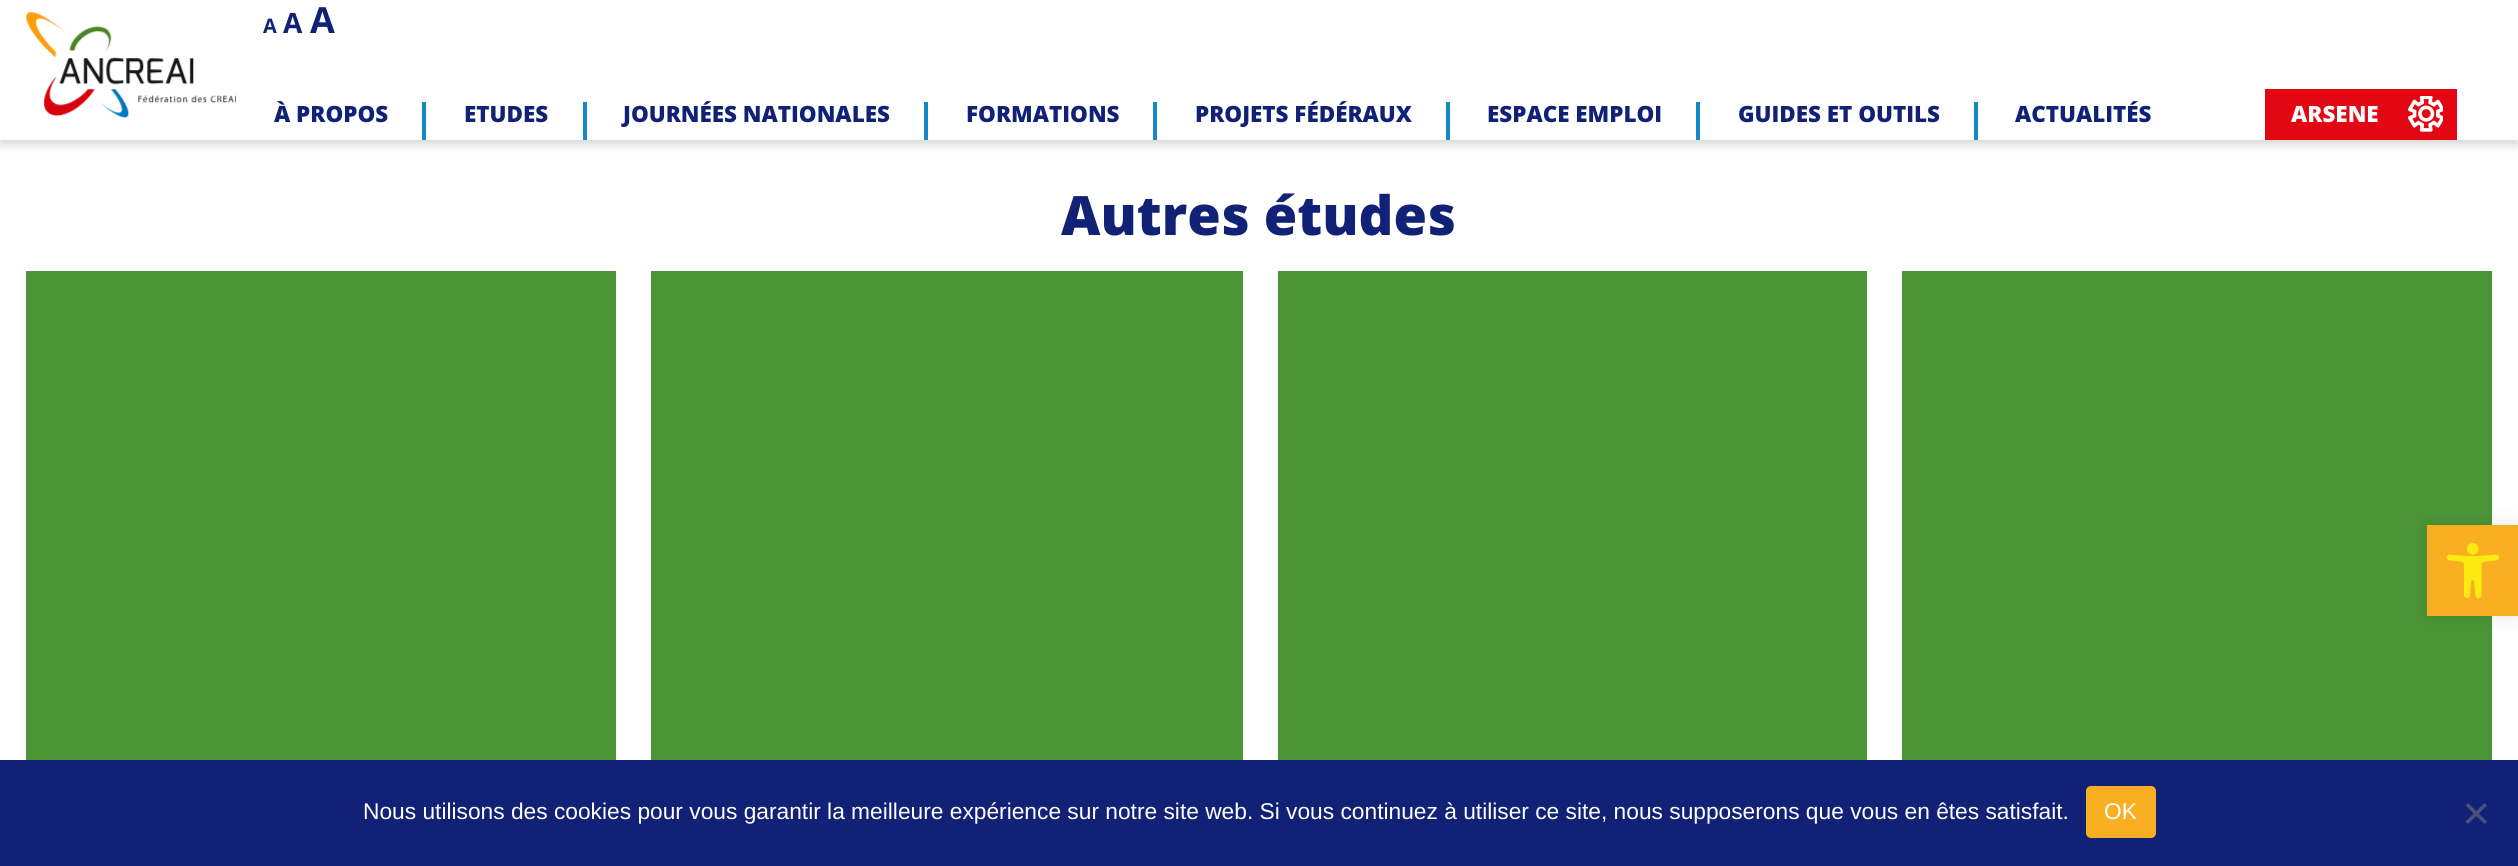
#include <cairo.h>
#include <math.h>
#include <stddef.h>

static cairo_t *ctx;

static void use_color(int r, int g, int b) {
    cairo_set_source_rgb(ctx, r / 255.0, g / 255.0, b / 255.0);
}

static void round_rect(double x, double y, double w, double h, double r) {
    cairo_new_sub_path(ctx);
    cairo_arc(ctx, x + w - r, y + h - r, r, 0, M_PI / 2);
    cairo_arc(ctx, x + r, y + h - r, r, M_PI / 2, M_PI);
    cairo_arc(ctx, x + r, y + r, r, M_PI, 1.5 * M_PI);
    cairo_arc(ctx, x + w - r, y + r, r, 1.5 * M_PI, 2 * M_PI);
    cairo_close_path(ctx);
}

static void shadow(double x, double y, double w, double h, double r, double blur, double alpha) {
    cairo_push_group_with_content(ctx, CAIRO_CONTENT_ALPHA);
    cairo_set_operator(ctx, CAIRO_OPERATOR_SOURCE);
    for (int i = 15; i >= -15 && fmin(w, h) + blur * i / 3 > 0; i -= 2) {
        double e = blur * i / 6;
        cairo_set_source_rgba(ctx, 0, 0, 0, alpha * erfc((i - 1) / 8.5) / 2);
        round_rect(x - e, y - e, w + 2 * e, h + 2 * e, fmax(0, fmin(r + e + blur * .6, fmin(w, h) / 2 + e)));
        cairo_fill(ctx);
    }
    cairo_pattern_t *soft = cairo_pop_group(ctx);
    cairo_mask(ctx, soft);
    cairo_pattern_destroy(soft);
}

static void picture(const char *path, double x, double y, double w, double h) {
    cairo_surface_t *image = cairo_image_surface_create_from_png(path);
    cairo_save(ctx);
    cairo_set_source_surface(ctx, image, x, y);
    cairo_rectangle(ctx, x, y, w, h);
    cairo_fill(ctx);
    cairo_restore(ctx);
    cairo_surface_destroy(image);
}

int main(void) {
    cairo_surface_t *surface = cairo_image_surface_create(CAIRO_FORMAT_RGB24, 2518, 866);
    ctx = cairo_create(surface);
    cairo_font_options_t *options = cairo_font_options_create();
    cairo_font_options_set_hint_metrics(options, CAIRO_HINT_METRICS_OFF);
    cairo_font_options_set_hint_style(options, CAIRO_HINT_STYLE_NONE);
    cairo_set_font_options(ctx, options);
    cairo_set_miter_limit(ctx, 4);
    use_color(255, 255, 255);
    cairo_paint(ctx);
    use_color(0, 0, 0);
    shadow(0, 5, 2518, 140, 0, 5, 0.16);
    use_color(255, 255, 255);
    cairo_rectangle(ctx, 0, 0, 2518, 140);
    cairo_fill(ctx);
    picture("img1.png", 26, 12, 210, 106);
    cairo_select_font_face(ctx, "Open Sans", CAIRO_FONT_SLANT_NORMAL, CAIRO_FONT_WEIGHT_BOLD);
    cairo_set_font_size(ctx, 20);
    use_color(17, 33, 118);
    cairo_move_to(ctx, 263, 33);
    cairo_show_text(ctx, "A");
    cairo_set_font_size(ctx, 28);
    cairo_move_to(ctx, 283, 33);
    cairo_show_text(ctx, "A");
    cairo_set_font_size(ctx, 36);
    cairo_move_to(ctx, 310, 33);
    cairo_show_text(ctx, "A");
    cairo_select_font_face(ctx, "Open Sans ExtraBold", CAIRO_FONT_SLANT_NORMAL, CAIRO_FONT_WEIGHT_NORMAL);
    cairo_set_font_size(ctx, 22.4);
    cairo_move_to(ctx, 274, 122);
    cairo_show_text(ctx, "À PROPOS");
    use_color(20, 136, 202);
    cairo_rectangle(ctx, 422, 102, 4, 38);
    cairo_fill(ctx);
    use_color(17, 33, 118);
    cairo_move_to(ctx, 464, 122);
    cairo_show_text(ctx, "ETUDES");
    use_color(20, 136, 202);
    cairo_rectangle(ctx, 583, 102, 4, 38);
    cairo_fill(ctx);
    use_color(17, 33, 118);
    cairo_move_to(ctx, 623, 122);
    cairo_show_text(ctx, "JOURNÉES NATIONALES");
    use_color(20, 136, 202);
    cairo_rectangle(ctx, 924, 102, 4, 38);
    cairo_fill(ctx);
    use_color(17, 33, 118);
    cairo_move_to(ctx, 966, 122);
    cairo_show_text(ctx, "FORMATIONS");
    use_color(20, 136, 202);
    cairo_rectangle(ctx, 1153, 102, 4, 38);
    cairo_fill(ctx);
    use_color(17, 33, 118);
    cairo_move_to(ctx, 1195, 122);
    cairo_show_text(ctx, "PROJETS FÉDÉRAUX");
    use_color(20, 136, 202);
    cairo_rectangle(ctx, 1446, 102, 4, 38);
    cairo_fill(ctx);
    use_color(17, 33, 118);
    cairo_move_to(ctx, 1487, 122);
    cairo_show_text(ctx, "ESPACE EMPLOI");
    use_color(20, 136, 202);
    cairo_rectangle(ctx, 1696, 102, 4, 38);
    cairo_fill(ctx);
    use_color(17, 33, 118);
    cairo_move_to(ctx, 1738, 122);
    cairo_show_text(ctx, "GUIDES ET OUTILS");
    use_color(20, 136, 202);
    cairo_rectangle(ctx, 1974, 102, 4, 38);
    cairo_fill(ctx);
    use_color(17, 33, 118);
    cairo_move_to(ctx, 2015, 122);
    cairo_show_text(ctx, "ACTUALITÉS");
    use_color(227, 6, 19);
    cairo_rectangle(ctx, 2265, 89, 192, 51);
    cairo_fill(ctx);
    use_color(255, 255, 255);
    cairo_move_to(ctx, 2291, 122);
    cairo_show_text(ctx, "ARSENE");
    picture("img2.png", 2408, 96, 35, 36);
    cairo_set_font_size(ctx, 54.25);
    use_color(17, 33, 118);
    cairo_move_to(ctx, 1061, 235);
    cairo_show_text(ctx, "Autres études");
    use_color(74, 149, 54);
    cairo_rectangle(ctx, 26, 271, 590, 489);
    cairo_fill(ctx);
    cairo_rectangle(ctx, 651, 271, 592, 489);
    cairo_fill(ctx);
    cairo_rectangle(ctx, 1278, 271, 589, 489);
    cairo_fill(ctx);
    cairo_rectangle(ctx, 1902, 271, 590, 489);
    cairo_fill(ctx);
    use_color(0, 0, 0);
    shadow(2427, 525, 91, 91, 0, 9, 0.1);
    use_color(249, 175, 34);
    cairo_rectangle(ctx, 2427, 525, 91, 91);
    cairo_fill(ctx);
    picture("img3.png", 2446, 543, 53, 55);
    use_color(17, 33, 118);
    cairo_rectangle(ctx, 0, 760, 2518, 106);
    cairo_fill(ctx);
    cairo_select_font_face(ctx, "Liberation Sans", CAIRO_FONT_SLANT_NORMAL, CAIRO_FONT_WEIGHT_NORMAL);
    cairo_set_font_size(ctx, 22.75);
    use_color(255, 255, 255);
    cairo_move_to(ctx, 363, 819);
    cairo_show_text(ctx, "Nous utilisons des cookies pour vous garantir la meilleure expérience sur notre site web. Si vous continuez à utiliser ce site, nous supposerons que vous en êtes satisfait.");
    use_color(249, 175, 34);
    round_rect(2086, 786, 70, 52, 5);
    cairo_fill(ctx);
    use_color(255, 255, 255);
    cairo_move_to(ctx, 2104, 819);
    cairo_show_text(ctx, "OK");
    use_color(73, 81, 123);
    cairo_new_path(ctx);
    cairo_move_to(ctx, 2484.5, 803);
    cairo_line_to(ctx, 2487, 805.5);
    cairo_line_to(ctx, 2468, 824);
    cairo_line_to(ctx, 2465.5, 821.5);
    cairo_close_path(ctx);
    cairo_fill(ctx);
    cairo_new_path(ctx);
    cairo_move_to(ctx, 2465.5, 805.5);
    cairo_line_to(ctx, 2468, 803);
    cairo_line_to(ctx, 2487, 821.5);
    cairo_line_to(ctx, 2484.5, 824);
    cairo_close_path(ctx);
    cairo_fill(ctx);
    cairo_surface_write_to_png(surface, "result.png");
    cairo_font_options_destroy(options);
    cairo_destroy(ctx);
    cairo_surface_destroy(surface);
    return 0;
}
